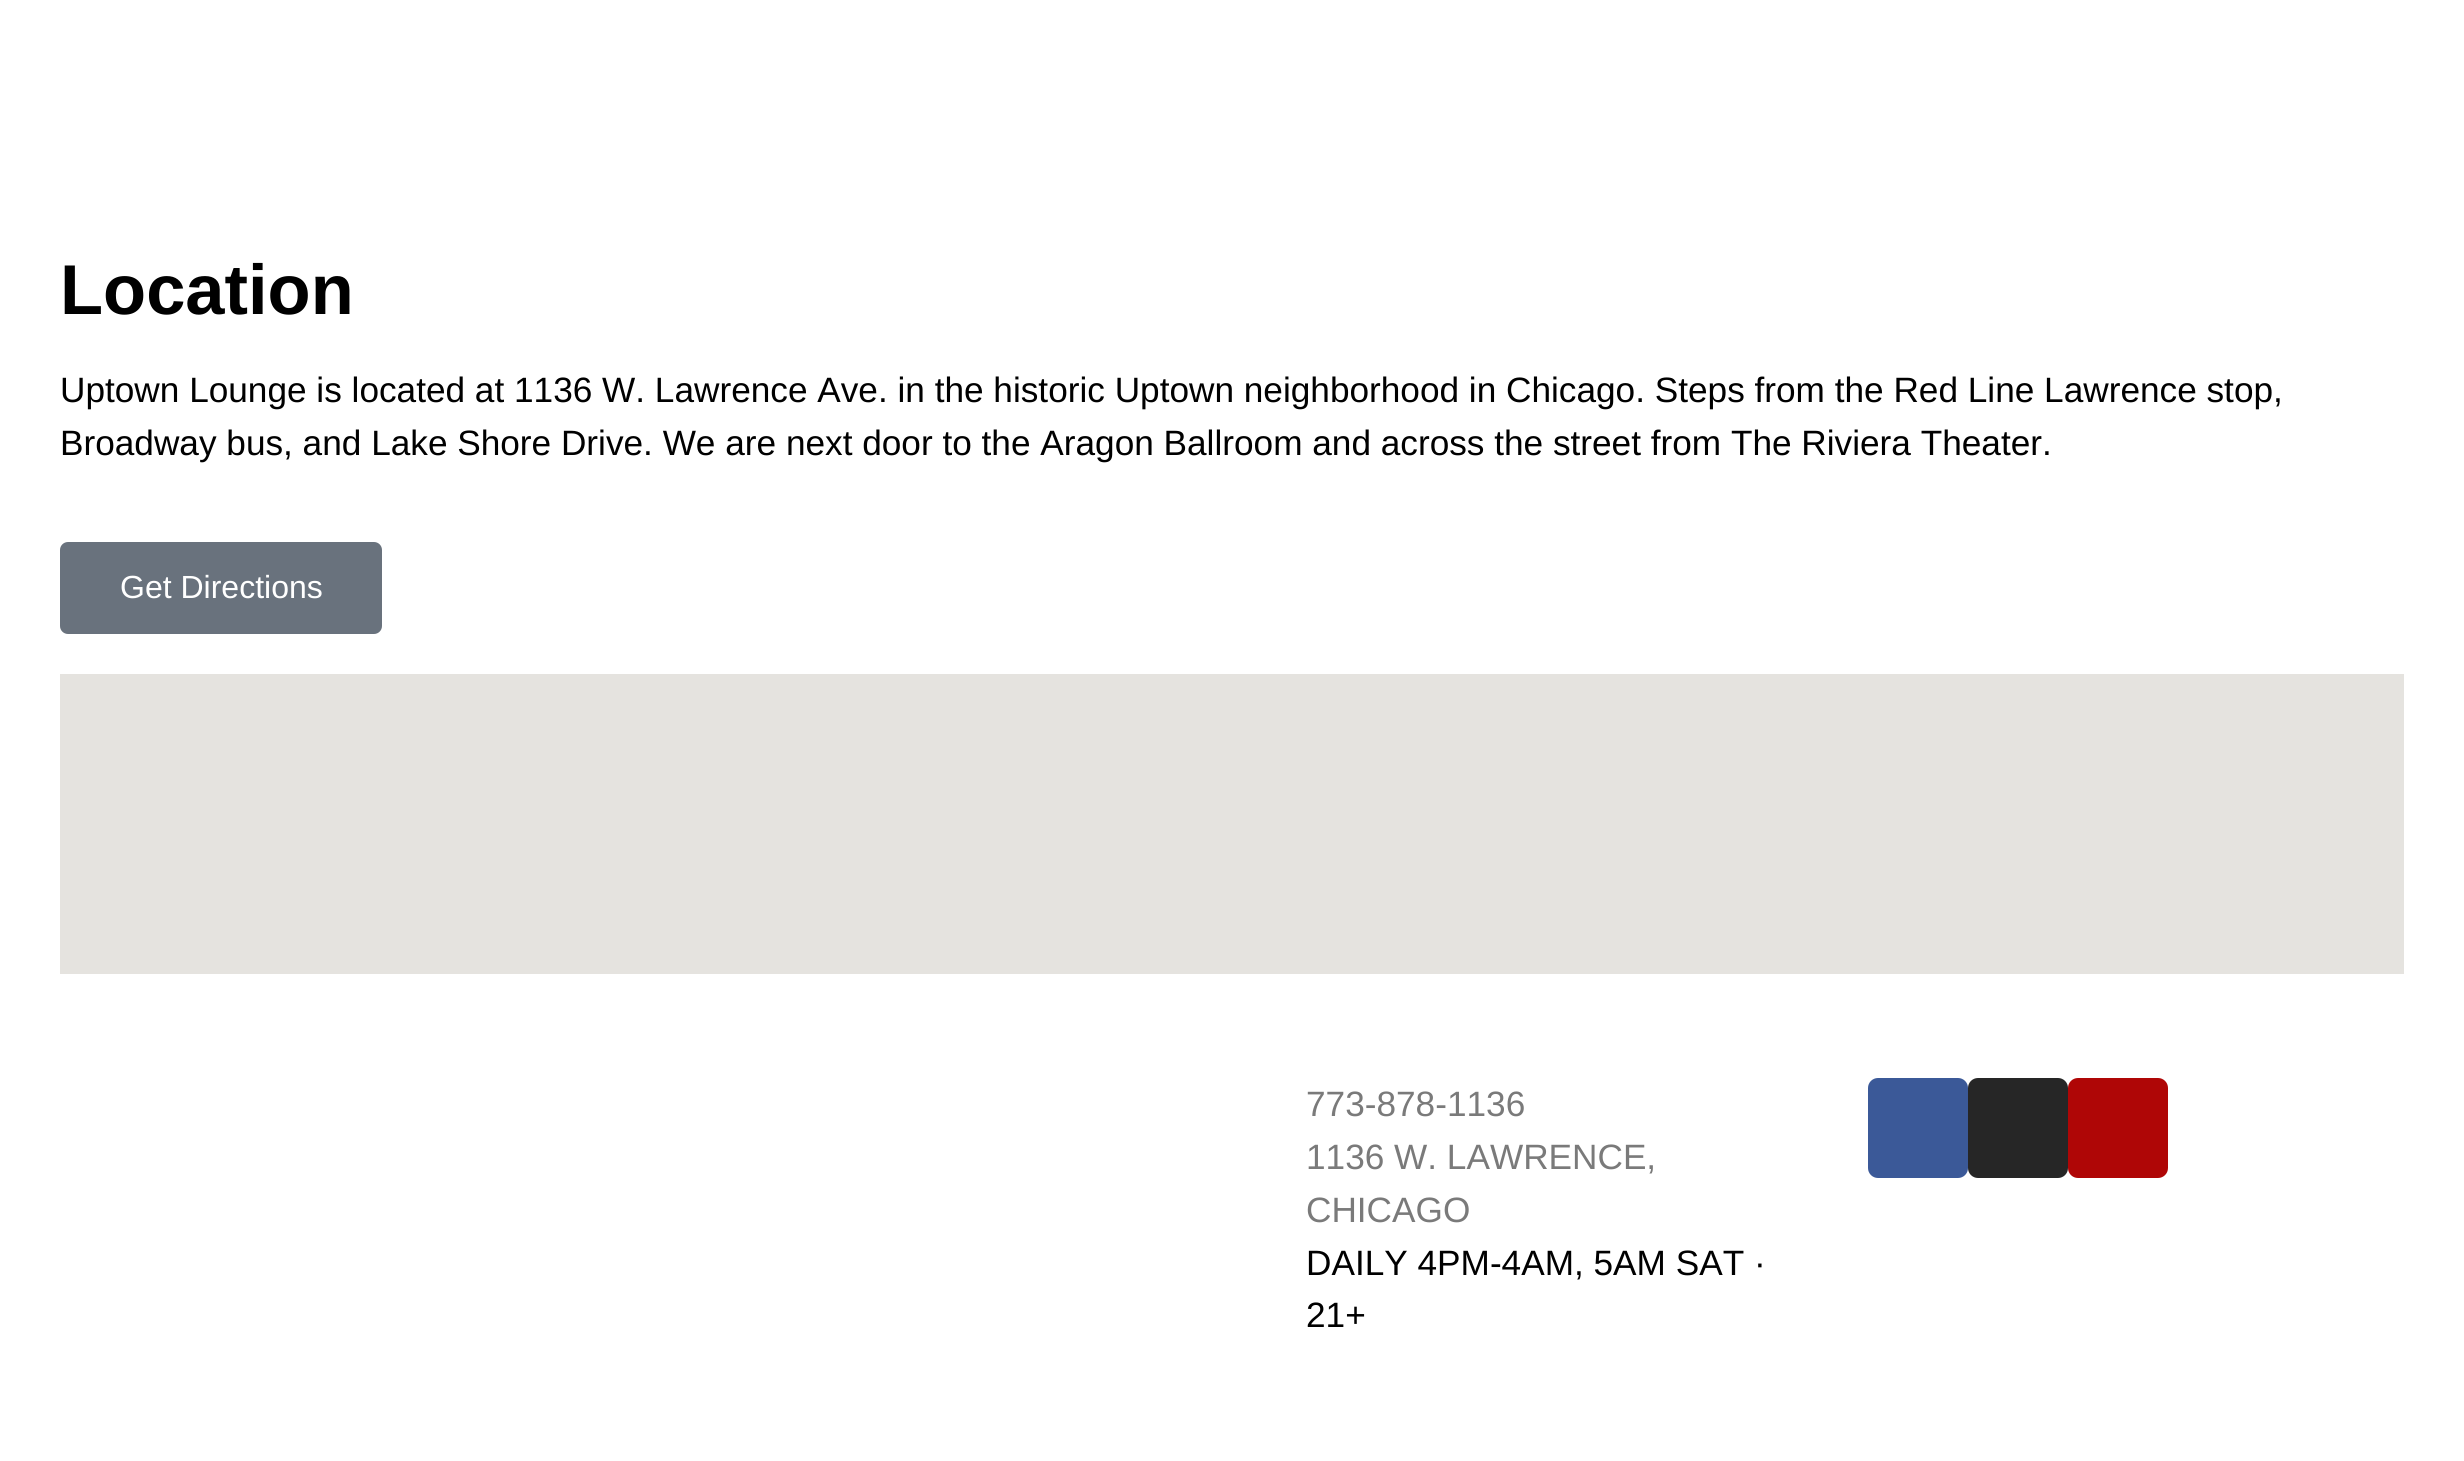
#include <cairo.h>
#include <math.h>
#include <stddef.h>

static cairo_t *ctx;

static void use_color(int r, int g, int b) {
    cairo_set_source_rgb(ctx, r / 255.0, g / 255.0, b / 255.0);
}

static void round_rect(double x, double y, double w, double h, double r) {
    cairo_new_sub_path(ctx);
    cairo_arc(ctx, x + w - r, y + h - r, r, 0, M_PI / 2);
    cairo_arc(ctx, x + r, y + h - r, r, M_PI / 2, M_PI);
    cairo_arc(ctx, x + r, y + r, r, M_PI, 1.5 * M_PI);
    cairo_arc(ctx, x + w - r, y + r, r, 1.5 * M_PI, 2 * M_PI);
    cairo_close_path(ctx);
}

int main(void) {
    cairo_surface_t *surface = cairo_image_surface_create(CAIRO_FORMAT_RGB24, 2464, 1461);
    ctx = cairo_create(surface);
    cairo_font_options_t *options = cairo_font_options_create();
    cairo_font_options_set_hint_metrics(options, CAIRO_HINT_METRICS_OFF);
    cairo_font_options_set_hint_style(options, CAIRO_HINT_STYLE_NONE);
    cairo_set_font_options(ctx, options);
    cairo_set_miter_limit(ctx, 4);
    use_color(255, 255, 255);
    cairo_paint(ctx);
    cairo_select_font_face(ctx, "Liberation Sans", CAIRO_FONT_SLANT_NORMAL, CAIRO_FONT_WEIGHT_BOLD);
    cairo_set_font_size(ctx, 70.5);
    use_color(0, 0, 0);
    cairo_move_to(ctx, 60, 314);
    cairo_show_text(ctx, "Location");
    cairo_select_font_face(ctx, "Liberation Sans", CAIRO_FONT_SLANT_NORMAL, CAIRO_FONT_WEIGHT_NORMAL);
    cairo_set_font_size(ctx, 35.2);
    cairo_move_to(ctx, 60, 402);
    cairo_show_text(ctx, "Uptown Lounge is located at 1136 W. Lawrence Ave. in the historic Uptown neighborhood in Chicago. Steps from the Red Line Lawrence stop,");
    cairo_move_to(ctx, 60, 455);
    cairo_show_text(ctx, "Broadway bus, and Lake Shore Drive. We are next door to the Aragon Ballroom and across the street from The Riviera Theater.");
    use_color(105, 114, 125);
    round_rect(60, 542, 322, 92, 8);
    cairo_fill(ctx);
    cairo_set_font_size(ctx, 32);
    use_color(255, 255, 255);
    cairo_move_to(ctx, 120, 598);
    cairo_show_text(ctx, "Get Directions");
    use_color(229, 227, 223);
    cairo_rectangle(ctx, 60, 674, 2344, 300);
    cairo_fill(ctx);
    cairo_set_font_size(ctx, 35.2);
    use_color(122, 122, 122);
    cairo_move_to(ctx, 1306, 1116);
    cairo_show_text(ctx, "773-878-1136");
    cairo_move_to(ctx, 1306, 1169);
    cairo_show_text(ctx, "1136 W. LAWRENCE,");
    cairo_move_to(ctx, 1306, 1222);
    cairo_show_text(ctx, "CHICAGO");
    use_color(0, 0, 0);
    cairo_move_to(ctx, 1306, 1275);
    cairo_show_text(ctx, "DAILY 4PM-4AM, 5AM SAT ·");
    cairo_move_to(ctx, 1306, 1327);
    cairo_show_text(ctx, "21+");
    use_color(59, 89, 152);
    round_rect(1868, 1078, 100, 100, 10);
    cairo_fill(ctx);
    use_color(38, 38, 38);
    round_rect(1968, 1078, 100, 100, 10);
    cairo_fill(ctx);
    use_color(175, 6, 6);
    round_rect(2068, 1078, 100, 100, 10);
    cairo_fill(ctx);
    cairo_surface_write_to_png(surface, "result.png");
    cairo_font_options_destroy(options);
    cairo_destroy(ctx);
    cairo_surface_destroy(surface);
    return 0;
}
